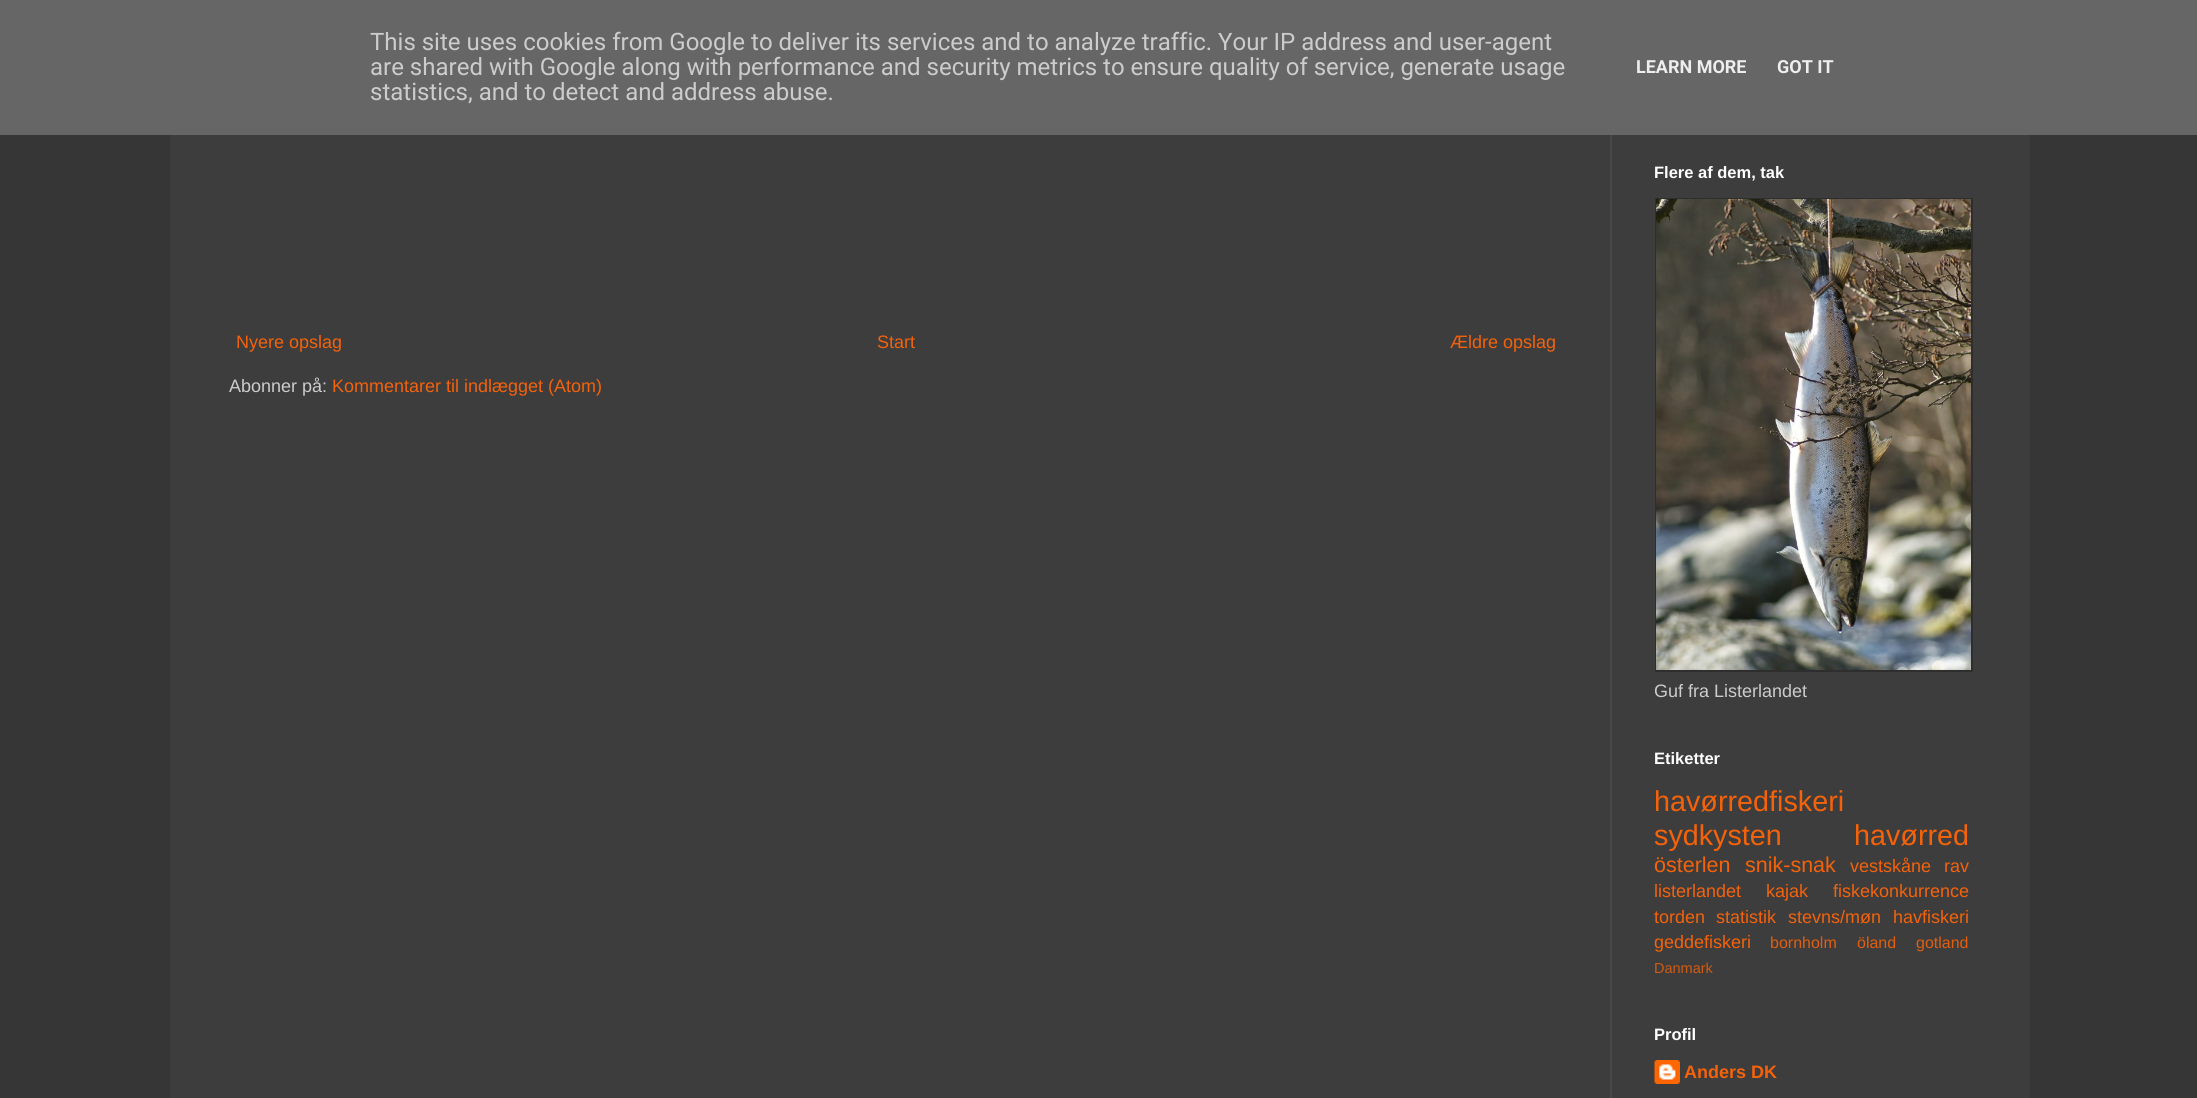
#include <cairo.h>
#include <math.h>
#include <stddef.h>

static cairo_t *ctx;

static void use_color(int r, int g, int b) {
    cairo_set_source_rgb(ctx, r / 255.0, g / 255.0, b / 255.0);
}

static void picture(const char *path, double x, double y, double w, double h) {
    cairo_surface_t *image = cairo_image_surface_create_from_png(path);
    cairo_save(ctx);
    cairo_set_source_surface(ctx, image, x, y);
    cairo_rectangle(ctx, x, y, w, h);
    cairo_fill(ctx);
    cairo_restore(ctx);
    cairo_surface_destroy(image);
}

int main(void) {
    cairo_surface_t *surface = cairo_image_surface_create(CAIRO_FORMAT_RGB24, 2197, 1098);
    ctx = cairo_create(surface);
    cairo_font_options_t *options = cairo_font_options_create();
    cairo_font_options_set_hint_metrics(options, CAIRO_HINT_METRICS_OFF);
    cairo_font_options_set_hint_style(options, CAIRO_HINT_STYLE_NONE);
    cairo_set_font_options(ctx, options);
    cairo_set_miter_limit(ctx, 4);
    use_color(54, 54, 54);
    cairo_paint(ctx);
    use_color(102, 102, 102);
    cairo_rectangle(ctx, 0, 0, 2197, 135);
    cairo_fill(ctx);
    cairo_select_font_face(ctx, "Roboto", CAIRO_FONT_SLANT_NORMAL, CAIRO_FONT_WEIGHT_NORMAL);
    cairo_set_font_size(ctx, 24);
    use_color(204, 204, 204);
    cairo_move_to(ctx, 370, 50);
    cairo_show_text(ctx, "This site uses cookies from Google to deliver its services and to analyze traffic. Your IP address and user-agent");
    cairo_move_to(ctx, 370, 75);
    cairo_show_text(ctx, "are shared with Google along with performance and security metrics to ensure quality of service, generate usage");
    cairo_move_to(ctx, 370, 100);
    cairo_show_text(ctx, "statistics, and to detect and address abuse.");
    cairo_select_font_face(ctx, "Roboto", CAIRO_FONT_SLANT_NORMAL, CAIRO_FONT_WEIGHT_BOLD);
    cairo_set_font_size(ctx, 18);
    use_color(238, 238, 238);
    cairo_move_to(ctx, 1636, 73);
    cairo_show_text(ctx, "LEARN MORE");
    cairo_move_to(ctx, 1777, 73);
    cairo_show_text(ctx, "GOT IT");
    use_color(61, 61, 61);
    cairo_rectangle(ctx, 170, 135, 1860, 963);
    cairo_fill(ctx);
    use_color(71, 71, 71);
    cairo_rectangle(ctx, 1610, 135, 2, 963);
    cairo_fill(ctx);
    cairo_select_font_face(ctx, "Liberation Sans", CAIRO_FONT_SLANT_NORMAL, CAIRO_FONT_WEIGHT_NORMAL);
    use_color(244, 98, 10);
    cairo_move_to(ctx, 236, 348);
    cairo_show_text(ctx, "Nyere opslag");
    cairo_move_to(ctx, 877, 348);
    cairo_show_text(ctx, "Start");
    cairo_move_to(ctx, 1450, 348);
    cairo_show_text(ctx, "Ældre opslag");
    use_color(204, 204, 204);
    cairo_move_to(ctx, 229, 392);
    cairo_show_text(ctx, "Abonner på:");
    use_color(244, 98, 10);
    cairo_move_to(ctx, 332, 392);
    cairo_show_text(ctx, "Kommentarer til indlægget (Atom)");
    cairo_select_font_face(ctx, "Liberation Sans", CAIRO_FONT_SLANT_NORMAL, CAIRO_FONT_WEIGHT_BOLD);
    cairo_set_font_size(ctx, 16.5);
    use_color(255, 255, 255);
    cairo_move_to(ctx, 1654, 178);
    cairo_show_text(ctx, "Flere af dem, tak");
    use_color(46, 46, 46);
    cairo_rectangle(ctx, 1655, 198, 318, 474);
    cairo_fill(ctx);
    picture("img1.png", 1656, 199, 315, 471);
    cairo_select_font_face(ctx, "Liberation Sans", CAIRO_FONT_SLANT_NORMAL, CAIRO_FONT_WEIGHT_NORMAL);
    cairo_set_font_size(ctx, 18);
    use_color(204, 204, 204);
    cairo_move_to(ctx, 1654, 697);
    cairo_show_text(ctx, "Guf fra Listerlandet");
    cairo_select_font_face(ctx, "Liberation Sans", CAIRO_FONT_SLANT_NORMAL, CAIRO_FONT_WEIGHT_BOLD);
    cairo_set_font_size(ctx, 16.5);
    use_color(255, 255, 255);
    cairo_move_to(ctx, 1654, 764);
    cairo_show_text(ctx, "Etiketter");
    cairo_select_font_face(ctx, "Liberation Sans", CAIRO_FONT_SLANT_NORMAL, CAIRO_FONT_WEIGHT_NORMAL);
    cairo_set_font_size(ctx, 28.75);
    use_color(244, 98, 10);
    cairo_move_to(ctx, 1654, 811);
    cairo_show_text(ctx, "havørredfiskeri");
    cairo_move_to(ctx, 1654, 845);
    cairo_show_text(ctx, "sydkysten");
    cairo_move_to(ctx, 1854, 845);
    cairo_show_text(ctx, "havørred");
    cairo_set_font_size(ctx, 21.5);
    cairo_move_to(ctx, 1654, 872);
    cairo_show_text(ctx, "österlen");
    cairo_move_to(ctx, 1745, 872);
    cairo_show_text(ctx, "snik-snak");
    cairo_set_font_size(ctx, 18);
    cairo_move_to(ctx, 1850, 872);
    cairo_show_text(ctx, "vestskåne");
    cairo_move_to(ctx, 1944, 872);
    cairo_show_text(ctx, "rav");
    cairo_move_to(ctx, 1654, 897);
    cairo_show_text(ctx, "listerlandet");
    cairo_move_to(ctx, 1766, 897);
    cairo_show_text(ctx, "kajak");
    cairo_move_to(ctx, 1833, 897);
    cairo_show_text(ctx, "fiskekonkurrence");
    cairo_move_to(ctx, 1654, 923);
    cairo_show_text(ctx, "torden");
    cairo_move_to(ctx, 1716, 923);
    cairo_show_text(ctx, "statistik");
    cairo_move_to(ctx, 1788, 923);
    cairo_show_text(ctx, "stevns/møn");
    cairo_move_to(ctx, 1893, 923);
    cairo_show_text(ctx, "havfiskeri");
    cairo_move_to(ctx, 1654, 948);
    cairo_show_text(ctx, "geddefiskeri");
    cairo_set_font_size(ctx, 16);
    use_color(226, 94, 15);
    cairo_move_to(ctx, 1770, 948);
    cairo_show_text(ctx, "bornholm");
    cairo_move_to(ctx, 1857, 948);
    cairo_show_text(ctx, "öland");
    cairo_move_to(ctx, 1916, 948);
    cairo_show_text(ctx, "gotland");
    cairo_set_font_size(ctx, 14.5);
    use_color(207, 91, 20);
    cairo_move_to(ctx, 1654, 973);
    cairo_show_text(ctx, "Danmark");
    cairo_select_font_face(ctx, "Liberation Sans", CAIRO_FONT_SLANT_NORMAL, CAIRO_FONT_WEIGHT_BOLD);
    cairo_set_font_size(ctx, 16.5);
    use_color(255, 255, 255);
    cairo_move_to(ctx, 1654, 1040);
    cairo_show_text(ctx, "Profil");
    picture("img2.png", 1654, 1060, 26, 24);
    cairo_set_font_size(ctx, 18);
    use_color(244, 98, 10);
    cairo_move_to(ctx, 1684, 1078);
    cairo_show_text(ctx, "Anders DK");
    cairo_surface_write_to_png(surface, "result.png");
    cairo_font_options_destroy(options);
    cairo_destroy(ctx);
    cairo_surface_destroy(surface);
    return 0;
}
